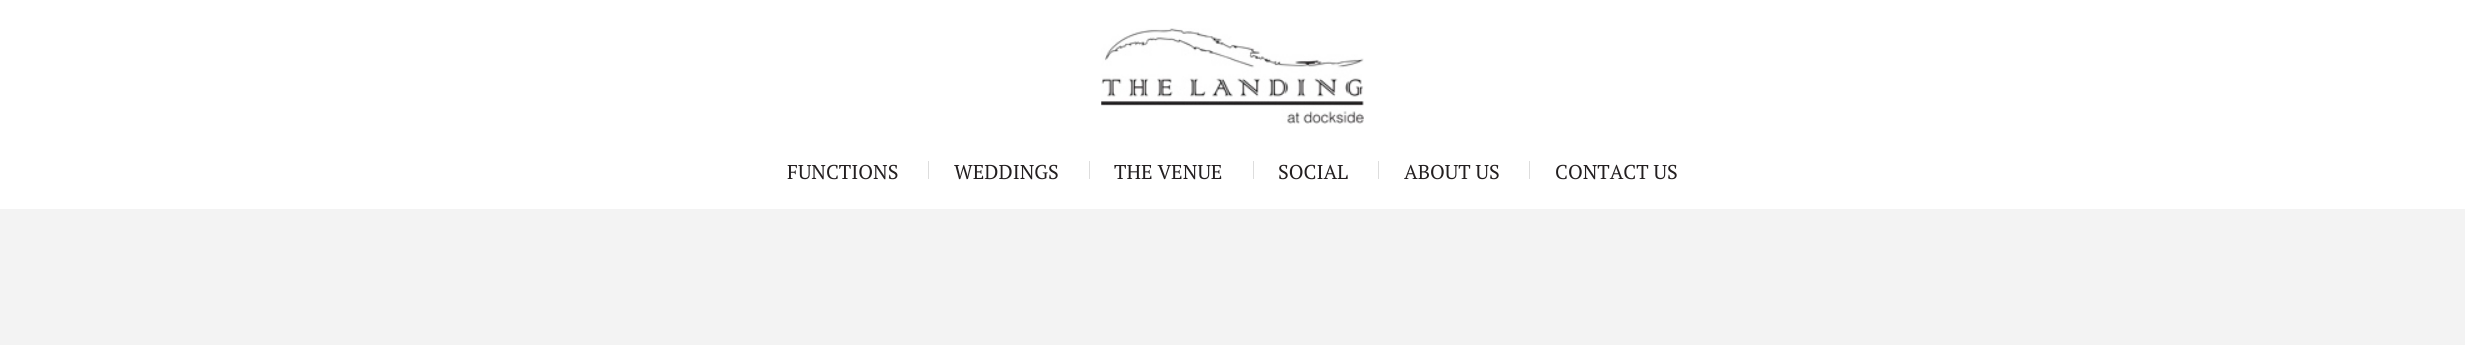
#include <cairo.h>
#include <math.h>
#include <stddef.h>

static cairo_t *ctx;

static void use_color(int r, int g, int b) {
    cairo_set_source_rgb(ctx, r / 255.0, g / 255.0, b / 255.0);
}

static void picture(const char *path, double x, double y, double w, double h) {
    cairo_surface_t *image = cairo_image_surface_create_from_png(path);
    cairo_save(ctx);
    cairo_set_source_surface(ctx, image, x, y);
    cairo_rectangle(ctx, x, y, w, h);
    cairo_fill(ctx);
    cairo_restore(ctx);
    cairo_surface_destroy(image);
}

int main(void) {
    cairo_surface_t *surface = cairo_image_surface_create(CAIRO_FORMAT_RGB24, 2465, 345);
    ctx = cairo_create(surface);
    cairo_font_options_t *options = cairo_font_options_create();
    cairo_font_options_set_hint_metrics(options, CAIRO_HINT_METRICS_OFF);
    cairo_font_options_set_hint_style(options, CAIRO_HINT_STYLE_NONE);
    cairo_set_font_options(ctx, options);
    cairo_set_miter_limit(ctx, 4);
    use_color(255, 255, 255);
    cairo_paint(ctx);
    picture("img1.png", 1101, 28, 263, 96);
    cairo_select_font_face(ctx, "PT Serif", CAIRO_FONT_SLANT_NORMAL, CAIRO_FONT_WEIGHT_NORMAL);
    cairo_set_font_size(ctx, 20);
    use_color(35, 31, 32);
    cairo_move_to(ctx, 787, 179);
    cairo_show_text(ctx, "FUNCTIONS");
    use_color(221, 221, 221);
    cairo_rectangle(ctx, 928, 161, 1, 18);
    cairo_fill(ctx);
    use_color(35, 31, 32);
    cairo_move_to(ctx, 954, 179);
    cairo_show_text(ctx, "WEDDINGS");
    use_color(221, 221, 221);
    cairo_rectangle(ctx, 1089, 161, 1, 18);
    cairo_fill(ctx);
    use_color(35, 31, 32);
    cairo_move_to(ctx, 1114, 179);
    cairo_show_text(ctx, "THE VENUE");
    use_color(221, 221, 221);
    cairo_rectangle(ctx, 1253, 161, 1, 18);
    cairo_fill(ctx);
    use_color(35, 31, 32);
    cairo_move_to(ctx, 1278, 179);
    cairo_show_text(ctx, "SOCIAL");
    use_color(221, 221, 221);
    cairo_rectangle(ctx, 1378, 161, 1, 18);
    cairo_fill(ctx);
    use_color(35, 31, 32);
    cairo_move_to(ctx, 1404, 179);
    cairo_show_text(ctx, "ABOUT US");
    use_color(221, 221, 221);
    cairo_rectangle(ctx, 1529, 161, 1, 18);
    cairo_fill(ctx);
    use_color(35, 31, 32);
    cairo_move_to(ctx, 1555, 179);
    cairo_show_text(ctx, "CONTACT US");
    use_color(243, 243, 243);
    cairo_rectangle(ctx, 0, 209, 2465, 136);
    cairo_fill(ctx);
    cairo_surface_write_to_png(surface, "result.png");
    cairo_font_options_destroy(options);
    cairo_destroy(ctx);
    cairo_surface_destroy(surface);
    return 0;
}
